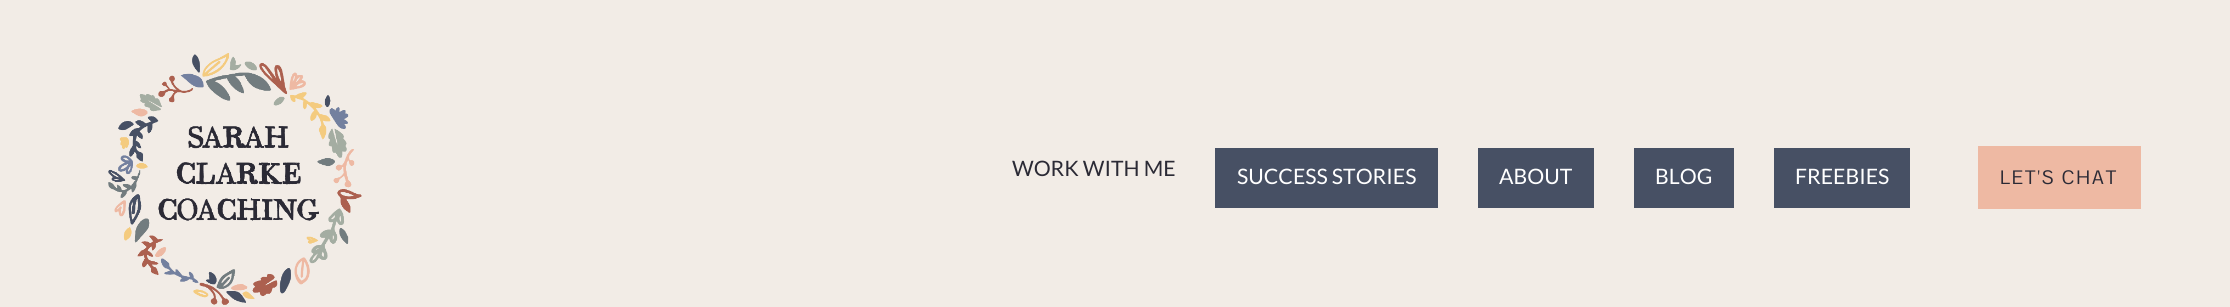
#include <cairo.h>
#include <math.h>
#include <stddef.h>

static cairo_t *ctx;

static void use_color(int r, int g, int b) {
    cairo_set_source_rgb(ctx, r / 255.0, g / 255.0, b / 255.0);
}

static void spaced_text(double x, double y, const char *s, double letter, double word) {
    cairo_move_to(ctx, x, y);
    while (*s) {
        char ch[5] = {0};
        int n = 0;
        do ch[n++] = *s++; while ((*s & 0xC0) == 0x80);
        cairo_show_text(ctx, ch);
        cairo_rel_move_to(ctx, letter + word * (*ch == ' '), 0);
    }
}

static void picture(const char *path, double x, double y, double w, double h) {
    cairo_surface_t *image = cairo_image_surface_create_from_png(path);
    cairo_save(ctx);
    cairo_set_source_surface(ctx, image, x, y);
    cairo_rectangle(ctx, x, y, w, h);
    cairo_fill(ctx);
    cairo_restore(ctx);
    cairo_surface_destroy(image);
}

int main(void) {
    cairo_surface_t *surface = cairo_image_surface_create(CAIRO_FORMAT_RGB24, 2230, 307);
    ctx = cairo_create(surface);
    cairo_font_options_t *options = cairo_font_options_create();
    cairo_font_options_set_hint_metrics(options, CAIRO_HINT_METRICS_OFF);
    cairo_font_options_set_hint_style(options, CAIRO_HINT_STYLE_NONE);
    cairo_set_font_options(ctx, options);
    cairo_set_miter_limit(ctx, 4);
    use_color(242, 236, 230);
    cairo_paint(ctx);
    picture("img1.png", 108, 53, 254, 252);
    cairo_select_font_face(ctx, "Lato", CAIRO_FONT_SLANT_NORMAL, CAIRO_FONT_WEIGHT_NORMAL);
    cairo_set_font_size(ctx, 21.25);
    use_color(43, 42, 53);
    cairo_move_to(ctx, 1012, 176);
    cairo_show_text(ctx, "WORK WITH ME");
    use_color(71, 80, 100);
    cairo_rectangle(ctx, 1215, 148, 223, 60);
    cairo_fill(ctx);
    use_color(255, 255, 255);
    cairo_move_to(ctx, 1237, 184);
    cairo_show_text(ctx, "SUCCESS STORIES");
    use_color(71, 80, 100);
    cairo_rectangle(ctx, 1478, 148, 116, 60);
    cairo_fill(ctx);
    use_color(255, 255, 255);
    cairo_move_to(ctx, 1499, 184);
    cairo_show_text(ctx, "ABOUT");
    use_color(71, 80, 100);
    cairo_rectangle(ctx, 1634, 148, 100, 60);
    cairo_fill(ctx);
    use_color(255, 255, 255);
    cairo_move_to(ctx, 1655, 184);
    cairo_show_text(ctx, "BLOG");
    use_color(71, 80, 100);
    cairo_rectangle(ctx, 1774, 148, 136, 60);
    cairo_fill(ctx);
    use_color(255, 255, 255);
    cairo_move_to(ctx, 1795, 184);
    cairo_show_text(ctx, "FREEBIES");
    use_color(238, 185, 163);
    cairo_rectangle(ctx, 1978, 146, 163, 63);
    cairo_fill(ctx);
    cairo_select_font_face(ctx, "Pontano Sans", CAIRO_FONT_SLANT_NORMAL, CAIRO_FONT_WEIGHT_NORMAL);
    cairo_set_font_size(ctx, 19);
    use_color(43, 42, 53);
    spaced_text(2000, 184, "LET'S CHAT", 2, 0);
    cairo_surface_write_to_png(surface, "result.png");
    cairo_font_options_destroy(options);
    cairo_destroy(ctx);
    cairo_surface_destroy(surface);
    return 0;
}
